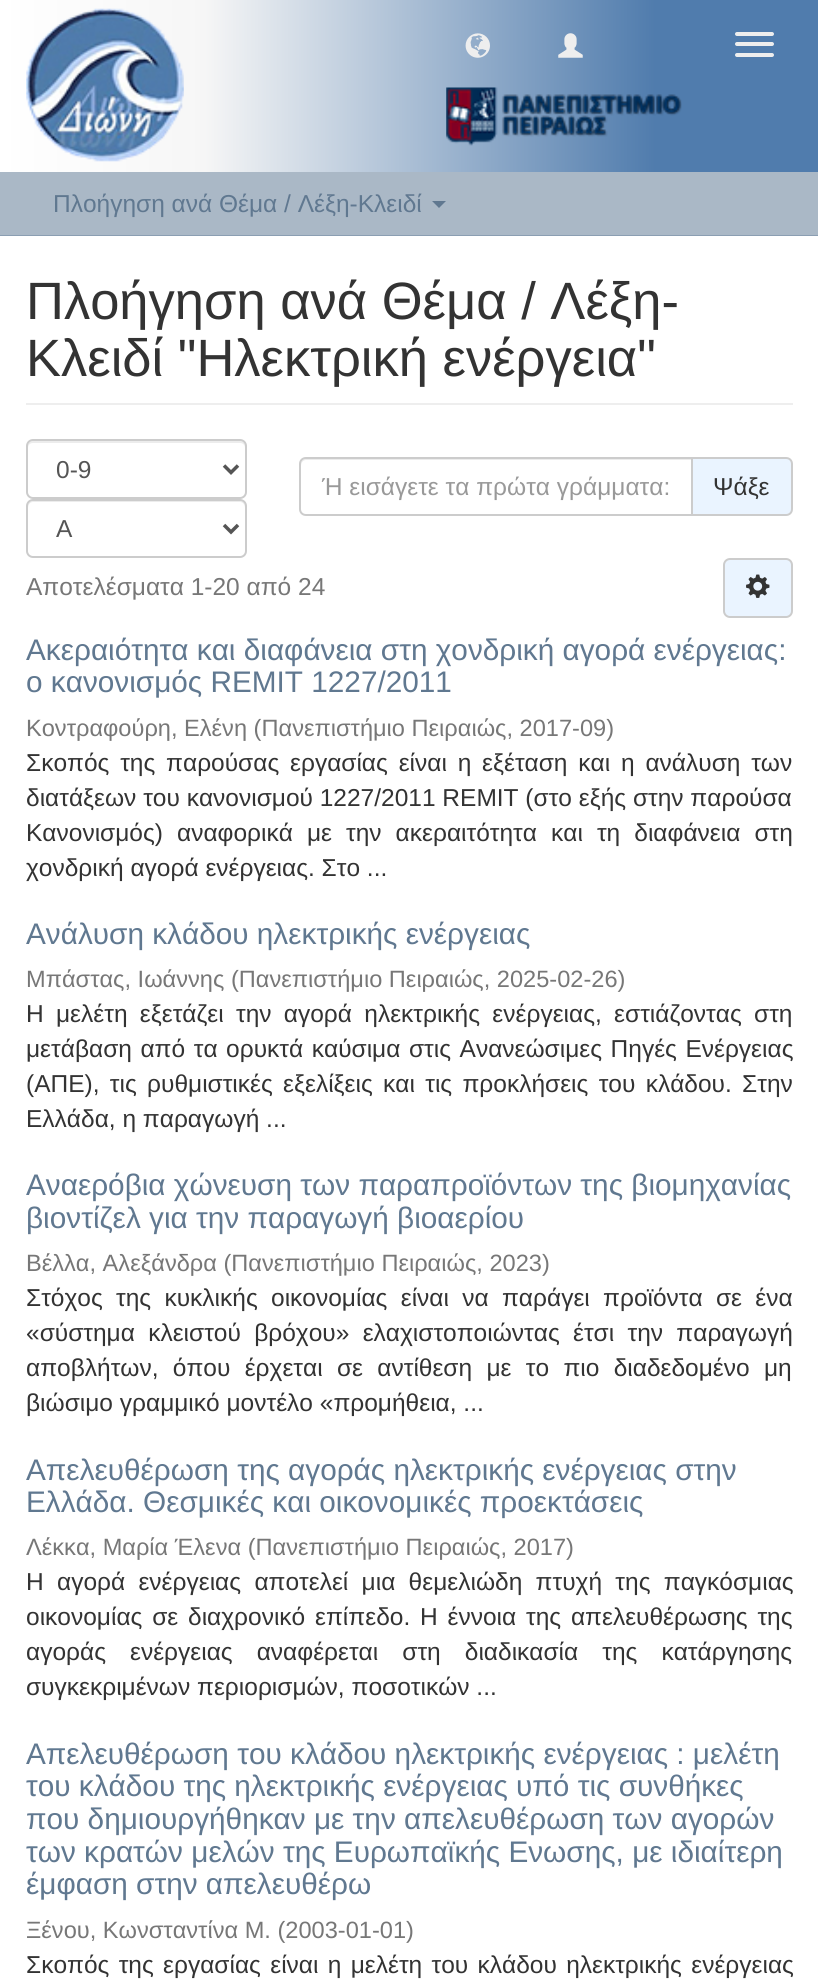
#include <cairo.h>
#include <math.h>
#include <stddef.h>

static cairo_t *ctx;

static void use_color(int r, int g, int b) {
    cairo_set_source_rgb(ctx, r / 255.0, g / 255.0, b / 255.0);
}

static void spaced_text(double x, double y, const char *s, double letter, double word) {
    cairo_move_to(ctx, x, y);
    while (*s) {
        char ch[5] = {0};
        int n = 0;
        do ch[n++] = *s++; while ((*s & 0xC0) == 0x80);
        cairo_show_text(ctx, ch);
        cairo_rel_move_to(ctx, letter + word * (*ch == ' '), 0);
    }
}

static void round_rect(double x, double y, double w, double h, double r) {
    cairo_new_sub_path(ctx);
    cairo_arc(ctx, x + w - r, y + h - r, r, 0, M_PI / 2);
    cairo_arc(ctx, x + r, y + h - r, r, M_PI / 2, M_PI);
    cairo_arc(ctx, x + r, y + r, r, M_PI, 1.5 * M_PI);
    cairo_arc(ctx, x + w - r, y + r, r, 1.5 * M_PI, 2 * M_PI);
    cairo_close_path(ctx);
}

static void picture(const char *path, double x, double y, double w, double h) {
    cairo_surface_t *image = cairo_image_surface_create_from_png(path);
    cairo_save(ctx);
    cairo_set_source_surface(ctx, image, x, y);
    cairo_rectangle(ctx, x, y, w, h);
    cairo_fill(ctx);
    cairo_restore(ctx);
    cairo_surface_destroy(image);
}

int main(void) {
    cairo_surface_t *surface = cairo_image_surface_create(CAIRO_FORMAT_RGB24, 818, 1986);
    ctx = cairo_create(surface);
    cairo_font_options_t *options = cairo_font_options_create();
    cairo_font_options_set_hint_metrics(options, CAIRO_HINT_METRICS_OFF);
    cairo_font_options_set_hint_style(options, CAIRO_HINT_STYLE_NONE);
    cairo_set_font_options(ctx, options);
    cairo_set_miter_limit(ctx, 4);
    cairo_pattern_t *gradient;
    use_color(170, 184, 198);
    cairo_paint(ctx);
    gradient = cairo_pattern_create_linear(0, 86, 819, 86);
    cairo_pattern_add_color_stop_rgba(gradient, 0, 1, 1, 1, 1);
    cairo_pattern_add_color_stop_rgba(gradient, 0.25, 0.965, 0.965, 0.965, 1);
    cairo_pattern_add_color_stop_rgba(gradient, 0.8, 0.314, 0.486, 0.678, 1);
    cairo_set_source(ctx, gradient);
    cairo_pattern_destroy(gradient);
    cairo_rectangle(ctx, 0, 0, 818, 172);
    cairo_fill(ctx);
    picture("img1.png", 26, 8, 158, 154);
    picture("img2.png", 465, 33, 25, 25);
    picture("img3.png", 558, 33, 25, 25);
    picture("img4.png", 446, 87, 236, 59);
    use_color(238, 238, 238);
    round_rect(735, 32, 39, 4, 2);
    cairo_fill(ctx);
    round_rect(735, 42, 39, 4, 2);
    cairo_fill(ctx);
    round_rect(735, 53, 39, 4, 2);
    cairo_fill(ctx);
    use_color(139, 158, 178);
    cairo_rectangle(ctx, 0, 235, 818, 1);
    cairo_fill(ctx);
    cairo_select_font_face(ctx, "Liberation Sans", CAIRO_FONT_SLANT_NORMAL, CAIRO_FONT_WEIGHT_NORMAL);
    cairo_set_font_size(ctx, 24.5);
    use_color(96, 120, 144);
    cairo_move_to(ctx, 53, 212);
    cairo_show_text(ctx, "Πλοήγηση ανά Θέμα / Λέξη-Κλειδί");
    cairo_new_path(ctx);
    cairo_move_to(ctx, 432, 201);
    cairo_line_to(ctx, 446, 201);
    cairo_line_to(ctx, 439, 208);
    cairo_close_path(ctx);
    cairo_fill(ctx);
    use_color(255, 255, 255);
    cairo_rectangle(ctx, 0, 236, 818, 1750);
    cairo_fill(ctx);
    use_color(238, 238, 238);
    cairo_rectangle(ctx, 26, 403, 767, 2);
    cairo_fill(ctx);
    cairo_set_font_size(ctx, 52.5);
    use_color(51, 51, 51);
    cairo_move_to(ctx, 26, 319);
    cairo_show_text(ctx, "Πλοήγηση ανά Θέμα / Λέξη-");
    cairo_move_to(ctx, 26, 376);
    cairo_show_text(ctx, "Κλειδί \"Ηλεκτρική ενέργεια\"");
    use_color(236, 236, 236);
    cairo_new_path(ctx);
    cairo_move_to(ctx, 33, 443);
    cairo_line_to(ctx, 240, 443);
    cairo_curve_to(ctx, 243, 443, 245, 445, 245, 448);
    cairo_line_to(ctx, 245, 446);
    cairo_curve_to(ctx, 245, 443, 243, 441, 240, 441);
    cairo_line_to(ctx, 33, 441);
    cairo_curve_to(ctx, 30, 441, 28, 443, 28, 446);
    cairo_line_to(ctx, 28, 448);
    cairo_curve_to(ctx, 28, 445, 30, 443, 33, 443);
    cairo_close_path(ctx);
    cairo_fill(ctx);
    round_rect(27, 440, 219, 58, 6);
    use_color(204, 204, 204);
    cairo_stroke(ctx);
    cairo_new_path(ctx);
    cairo_move_to(ctx, 224, 465.5);
    cairo_line_to(ctx, 231, 472.5);
    cairo_line_to(ctx, 238, 465.5);
    use_color(85, 85, 85);
    cairo_set_line_width(ctx, 3.5);
    cairo_stroke(ctx);
    cairo_set_font_size(ctx, 24.5);
    cairo_move_to(ctx, 56, 478);
    cairo_show_text(ctx, "0-9");
    use_color(236, 236, 236);
    cairo_new_path(ctx);
    cairo_move_to(ctx, 33, 502);
    cairo_line_to(ctx, 240, 502);
    cairo_curve_to(ctx, 243, 502, 245, 505, 245, 508);
    cairo_line_to(ctx, 245, 506);
    cairo_curve_to(ctx, 245, 503, 243, 501, 240, 501);
    cairo_line_to(ctx, 33, 501);
    cairo_curve_to(ctx, 30, 501, 28, 503, 28, 506);
    cairo_line_to(ctx, 28, 508);
    cairo_curve_to(ctx, 28, 505, 30, 502, 33, 502);
    cairo_close_path(ctx);
    cairo_fill(ctx);
    round_rect(27, 500, 219, 57, 6);
    use_color(204, 204, 204);
    cairo_set_line_width(ctx, 2);
    cairo_stroke(ctx);
    cairo_new_path(ctx);
    cairo_move_to(ctx, 224, 525);
    cairo_line_to(ctx, 231, 532);
    cairo_line_to(ctx, 238, 525);
    use_color(85, 85, 85);
    cairo_set_line_width(ctx, 3.5);
    cairo_stroke(ctx);
    cairo_move_to(ctx, 56, 537);
    cairo_show_text(ctx, "Α");
    use_color(234, 244, 255);
    cairo_new_path(ctx);
    cairo_move_to(ctx, 692, 458);
    cairo_line_to(ctx, 786, 458);
    cairo_curve_to(ctx, 789.5, 458, 792, 460.5, 792, 464);
    cairo_line_to(ctx, 792, 509);
    cairo_curve_to(ctx, 792, 512.5, 789.5, 515, 786, 515);
    cairo_line_to(ctx, 692, 515);
    cairo_close_path(ctx);
    cairo_fill_preserve(ctx);
    use_color(204, 204, 204);
    cairo_set_line_width(ctx, 2);
    cairo_stroke(ctx);
    use_color(255, 255, 255);
    cairo_new_path(ctx);
    cairo_move_to(ctx, 306, 457);
    cairo_line_to(ctx, 693, 457);
    cairo_line_to(ctx, 693, 516);
    cairo_line_to(ctx, 306, 516);
    cairo_curve_to(ctx, 302, 516, 299, 513, 299, 509);
    cairo_line_to(ctx, 299, 464);
    cairo_curve_to(ctx, 299, 460, 302, 457, 306, 457);
    cairo_close_path(ctx);
    cairo_fill(ctx);
    use_color(236, 236, 236);
    cairo_new_path(ctx);
    cairo_move_to(ctx, 306, 460);
    cairo_line_to(ctx, 691, 460);
    cairo_line_to(ctx, 691, 459);
    cairo_line_to(ctx, 306, 459);
    cairo_curve_to(ctx, 303, 459, 301, 461, 301, 464);
    cairo_line_to(ctx, 301, 466);
    cairo_curve_to(ctx, 301, 463, 303, 460, 306, 460);
    cairo_close_path(ctx);
    cairo_fill(ctx);
    cairo_new_path(ctx);
    cairo_move_to(ctx, 306, 458);
    cairo_line_to(ctx, 692, 458);
    cairo_line_to(ctx, 692, 515);
    cairo_line_to(ctx, 306, 515);
    cairo_curve_to(ctx, 302.5, 515, 300, 512.5, 300, 509);
    cairo_line_to(ctx, 300, 464);
    cairo_curve_to(ctx, 300, 460.5, 302.5, 458, 306, 458);
    cairo_close_path(ctx);
    use_color(204, 204, 204);
    cairo_stroke(ctx);
    use_color(153, 153, 153);
    cairo_move_to(ctx, 322, 495);
    cairo_show_text(ctx, "Ή εισάγετε τα πρώτα γράμματα:");
    use_color(51, 51, 51);
    cairo_move_to(ctx, 713, 495);
    cairo_show_text(ctx, "Ψάξε");
    use_color(119, 119, 119);
    cairo_move_to(ctx, 26, 595);
    cairo_show_text(ctx, "Αποτελέσματα 1-20 από 24");
    use_color(234, 244, 255);
    round_rect(724, 559, 68, 58, 6);
    cairo_fill_preserve(ctx);
    use_color(204, 204, 204);
    cairo_stroke(ctx);
    picture("img5.png", 746, 574, 24, 24);
    cairo_set_font_size(ctx, 29.75);
    use_color(96, 120, 144);
    cairo_move_to(ctx, 26, 660);
    cairo_show_text(ctx, "Ακεραιότητα και διαφάνεια στη χονδρική αγορά ενέργειας:");
    cairo_move_to(ctx, 26, 692);
    cairo_show_text(ctx, "ο κανονισμός REMIT 1227/2011");
    cairo_set_font_size(ctx, 23.6);
    use_color(119, 119, 119);
    cairo_move_to(ctx, 26, 736);
    cairo_show_text(ctx, "Κοντραφούρη, Ελένη (Πανεπιστήμιο Πειραιώς, 2017-09)");
    cairo_set_font_size(ctx, 24.5);
    use_color(51, 51, 51);
    spaced_text(26, 771, "Σκοπός της παρούσας εργασίας είναι η εξέταση και η ανάλυση των", 0, 4);
    cairo_move_to(ctx, 26, 806);
    cairo_show_text(ctx, "διατάξεων του κανονισμού 1227/2011 REMIT (στο εξής στην παρούσα");
    spaced_text(26, 841, "Κανονισμός) αναφορικά με την ακεραιτότητα και τη διαφάνεια στη", 0, 7.25);
    cairo_move_to(ctx, 26, 876);
    cairo_show_text(ctx, "χονδρική αγορά ενέργειας. Στο ...");
    cairo_set_font_size(ctx, 29.75);
    use_color(96, 120, 144);
    cairo_move_to(ctx, 26, 944);
    cairo_show_text(ctx, "Ανάλυση κλάδου ηλεκτρικής ενέργειας");
    cairo_set_font_size(ctx, 23.6);
    use_color(119, 119, 119);
    cairo_move_to(ctx, 26, 987);
    cairo_show_text(ctx, "Μπάστας, Ιωάννης (Πανεπιστήμιο Πειραιώς, 2025-02-26)");
    cairo_set_font_size(ctx, 24.5);
    use_color(51, 51, 51);
    spaced_text(26, 1022, "Η μελέτη εξετάζει την αγορά ηλεκτρικής ενέργειας, εστιάζοντας στη", 0, 5.5);
    spaced_text(26, 1057, "μετάβαση από τα ορυκτά καύσιμα στις Ανανεώσιμες Πηγές Ενέργειας", 0, 1.75);
    spaced_text(26, 1092, "(ΑΠΕ), τις ρυθμιστικές εξελίξεις και τις προκλήσεις του κλάδου. Στην", 0, 3.5);
    cairo_move_to(ctx, 26, 1127);
    cairo_show_text(ctx, "Ελλάδα, η παραγωγή ...");
    cairo_set_font_size(ctx, 29.75);
    use_color(96, 120, 144);
    cairo_move_to(ctx, 26, 1195);
    cairo_show_text(ctx, "Αναερόβια χώνευση των παραπροϊόντων της βιομηχανίας");
    cairo_move_to(ctx, 26, 1228);
    cairo_show_text(ctx, "βιοντίζελ για την παραγωγή βιοαερίου");
    cairo_set_font_size(ctx, 23.6);
    use_color(119, 119, 119);
    cairo_move_to(ctx, 26, 1271);
    cairo_show_text(ctx, "Βέλλα, Αλεξάνδρα (Πανεπιστήμιο Πειραιώς, 2023)");
    cairo_set_font_size(ctx, 24.5);
    use_color(51, 51, 51);
    spaced_text(26, 1306, "Στόχος της κυκλικής οικονομίας είναι να παράγει προϊόντα σε ένα", 0, 6.5);
    spaced_text(26, 1341, "«σύστημα κλειστού βρόχου» ελαχιστοποιώντας έτσι την παραγωγή", 0, 6.5);
    spaced_text(26, 1376, "αποβλήτων, όπου έρχεται σε αντίθεση με το πιο διαδεδομένο μη", 0, 7.5);
    cairo_move_to(ctx, 26, 1411);
    cairo_show_text(ctx, "βιώσιμο γραμμικό μοντέλο «προμήθεια, ...");
    cairo_set_font_size(ctx, 29.75);
    use_color(96, 120, 144);
    cairo_move_to(ctx, 26, 1480);
    cairo_show_text(ctx, "Απελευθέρωση της αγοράς ηλεκτρικής ενέργειας στην");
    cairo_move_to(ctx, 26, 1512);
    cairo_show_text(ctx, "Ελλάδα. Θεσμικές και οικονομικές προεκτάσεις");
    cairo_set_font_size(ctx, 23.6);
    use_color(119, 119, 119);
    cairo_move_to(ctx, 26, 1555);
    cairo_show_text(ctx, "Λέκκα, Μαρία Έλενα (Πανεπιστήμιο Πειραιώς, 2017)");
    cairo_set_font_size(ctx, 24.5);
    use_color(51, 51, 51);
    spaced_text(26, 1590, "Η αγορά ενέργειας αποτελεί μια θεμελιώδη πτυχή της παγκόσμιας", 0, 6.5);
    spaced_text(26, 1625, "οικονομίας σε διαχρονικό επίπεδο. Η έννοια της απελευθέρωσης της", 0, 3);
    spaced_text(26, 1660, "αγοράς ενέργειας αναφέρεται στη διαδικασία της κατάργησης", 0, 17.25);
    cairo_move_to(ctx, 26, 1695);
    cairo_show_text(ctx, "συγκεκριμένων περιορισμών, ποσοτικών ...");
    cairo_set_font_size(ctx, 29.75);
    use_color(96, 120, 144);
    cairo_move_to(ctx, 26, 1764);
    cairo_show_text(ctx, "Απελευθέρωση του κλάδου ηλεκτρικής ενέργειας : μελέτη");
    cairo_move_to(ctx, 26, 1796);
    cairo_show_text(ctx, "του κλάδου της ηλεκτρικής ενέργειας υπό τις συνθήκες");
    cairo_move_to(ctx, 26, 1829);
    cairo_show_text(ctx, "που δημιουργήθηκαν με την απελευθέρωση των αγορών");
    cairo_move_to(ctx, 26, 1862);
    cairo_show_text(ctx, "των κρατών μελών της Ευρωπαϊκής Ενωσης, με ιδιαίτερη");
    cairo_move_to(ctx, 26, 1894);
    cairo_show_text(ctx, "έμφαση στην απελευθέρω");
    cairo_set_font_size(ctx, 23.6);
    use_color(119, 119, 119);
    cairo_move_to(ctx, 26, 1938);
    cairo_show_text(ctx, "Ξένου, Κωνσταντίνα Μ. (2003-01-01)");
    cairo_set_font_size(ctx, 24.5);
    use_color(51, 51, 51);
    spaced_text(26, 1973, "Σκοπός της εργασίας είναι η μελέτη του κλάδου ηλεκτρικής ενέργειας", 0, 2.5);
    cairo_surface_write_to_png(surface, "result.png");
    cairo_font_options_destroy(options);
    cairo_destroy(ctx);
    cairo_surface_destroy(surface);
    return 0;
}
